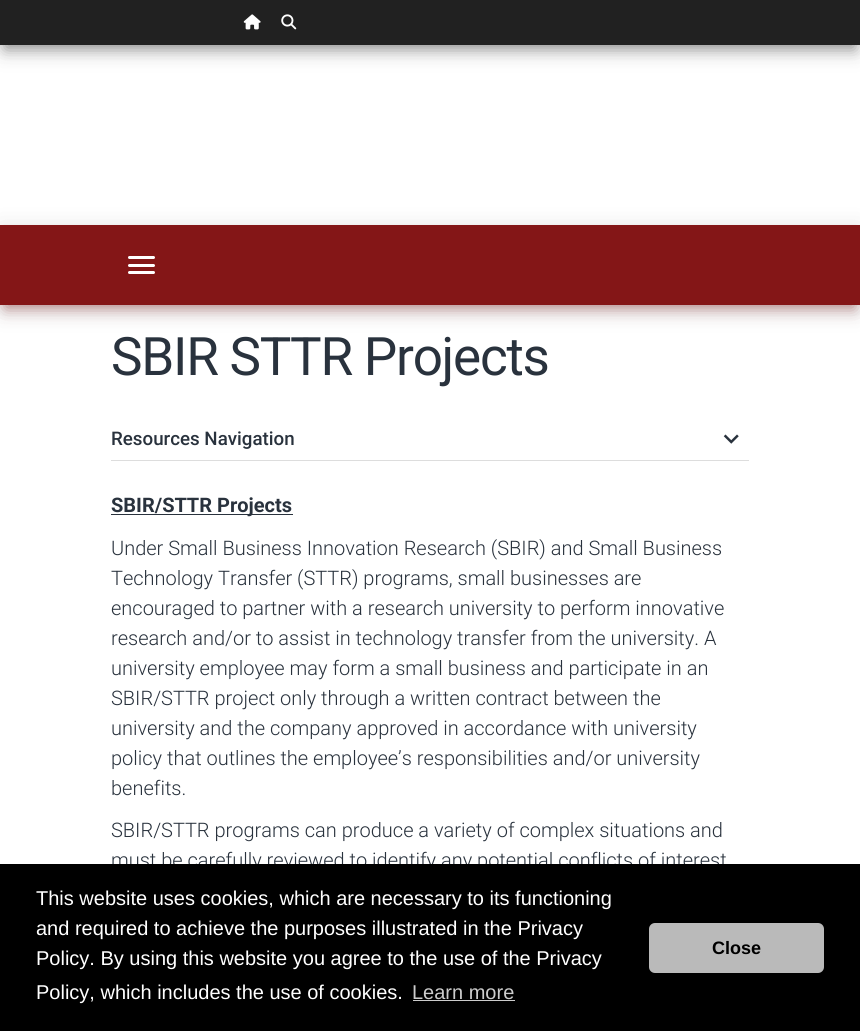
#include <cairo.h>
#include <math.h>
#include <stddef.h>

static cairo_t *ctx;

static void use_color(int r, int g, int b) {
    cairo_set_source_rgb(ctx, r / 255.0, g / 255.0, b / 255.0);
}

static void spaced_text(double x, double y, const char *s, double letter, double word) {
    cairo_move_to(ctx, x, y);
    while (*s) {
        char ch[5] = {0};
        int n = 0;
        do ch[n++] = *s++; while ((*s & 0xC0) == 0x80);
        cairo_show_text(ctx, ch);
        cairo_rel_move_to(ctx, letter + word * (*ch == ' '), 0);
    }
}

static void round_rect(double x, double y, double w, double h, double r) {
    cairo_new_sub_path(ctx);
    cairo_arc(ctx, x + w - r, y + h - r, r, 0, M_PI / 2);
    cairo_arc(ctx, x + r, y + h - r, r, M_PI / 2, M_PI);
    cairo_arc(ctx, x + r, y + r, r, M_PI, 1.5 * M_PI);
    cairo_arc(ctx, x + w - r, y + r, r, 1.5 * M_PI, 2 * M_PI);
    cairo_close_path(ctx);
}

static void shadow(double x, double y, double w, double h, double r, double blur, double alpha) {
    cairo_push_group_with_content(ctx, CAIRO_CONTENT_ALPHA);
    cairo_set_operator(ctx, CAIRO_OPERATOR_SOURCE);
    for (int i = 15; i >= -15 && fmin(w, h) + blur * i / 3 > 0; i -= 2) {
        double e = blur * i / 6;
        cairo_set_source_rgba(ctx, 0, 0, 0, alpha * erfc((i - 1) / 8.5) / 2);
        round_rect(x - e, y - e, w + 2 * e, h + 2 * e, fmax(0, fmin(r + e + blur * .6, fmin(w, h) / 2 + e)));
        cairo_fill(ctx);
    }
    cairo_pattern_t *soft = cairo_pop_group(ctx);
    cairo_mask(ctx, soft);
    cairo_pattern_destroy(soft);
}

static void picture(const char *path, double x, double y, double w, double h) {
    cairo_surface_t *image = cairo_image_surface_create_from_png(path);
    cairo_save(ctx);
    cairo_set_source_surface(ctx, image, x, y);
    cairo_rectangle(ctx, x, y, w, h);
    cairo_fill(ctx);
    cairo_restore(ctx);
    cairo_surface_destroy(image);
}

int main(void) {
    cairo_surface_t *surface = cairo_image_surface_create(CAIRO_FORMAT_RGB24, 860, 1031);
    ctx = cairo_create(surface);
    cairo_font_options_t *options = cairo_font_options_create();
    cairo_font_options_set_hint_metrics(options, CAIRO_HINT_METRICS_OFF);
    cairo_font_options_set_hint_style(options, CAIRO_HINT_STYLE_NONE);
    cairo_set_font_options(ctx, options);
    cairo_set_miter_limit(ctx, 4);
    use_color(255, 255, 255);
    cairo_paint(ctx);
    use_color(33, 33, 33);
    shadow(6, 15, 848, 33, 0, 7.5, 0.46);
    use_color(0, 0, 0);
    shadow(0, 5, 860, 45, 0, 12.5, 0.14);
    use_color(33, 33, 33);
    cairo_rectangle(ctx, 0, 0, 860, 45);
    cairo_fill(ctx);
    picture("img1.png", 243, 14, 18, 16);
    picture("img2.png", 281, 14, 16, 16);
    use_color(132, 22, 23);
    shadow(6, 240, 848, 68, 0, 7.5, 0.46);
    use_color(0, 0, 0);
    shadow(0, 230, 860, 80, 0, 12.5, 0.14);
    use_color(132, 22, 23);
    cairo_rectangle(ctx, 0, 225, 860, 80);
    cairo_fill(ctx);
    use_color(255, 255, 255);
    round_rect(128, 256, 27, 3, 1.5);
    cairo_fill(ctx);
    round_rect(128, 264, 27, 3, 1.5);
    cairo_fill(ctx);
    round_rect(128, 271, 27, 3, 1.5);
    cairo_fill(ctx);
    cairo_select_font_face(ctx, "Roboto", CAIRO_FONT_SLANT_NORMAL, CAIRO_FONT_WEIGHT_NORMAL);
    cairo_set_font_size(ctx, 53);
    use_color(41, 50, 61);
    spaced_text(111, 375, "SBIR STTR Projects", -1.25, 0);
    use_color(221, 221, 221);
    cairo_rectangle(ctx, 111, 460, 638, 1);
    cairo_fill(ctx);
    cairo_select_font_face(ctx, "Roboto Medium", CAIRO_FONT_SLANT_NORMAL, CAIRO_FONT_WEIGHT_NORMAL);
    cairo_set_font_size(ctx, 18.75);
    use_color(41, 50, 61);
    cairo_move_to(ctx, 111, 445);
    cairo_show_text(ctx, "Resources Navigation");
    picture("img3.png", 723, 434, 16, 10);
    cairo_rectangle(ctx, 111, 514, 182, 1);
    cairo_fill(ctx);
    cairo_select_font_face(ctx, "Roboto", CAIRO_FONT_SLANT_NORMAL, CAIRO_FONT_WEIGHT_BOLD);
    cairo_set_font_size(ctx, 20);
    cairo_move_to(ctx, 111, 512);
    cairo_show_text(ctx, "SBIR/STTR Projects");
    cairo_select_font_face(ctx, "Roboto Light", CAIRO_FONT_SLANT_NORMAL, CAIRO_FONT_WEIGHT_NORMAL);
    cairo_move_to(ctx, 111, 555);
    cairo_show_text(ctx, "Under Small Business Innovation Research (SBIR) and Small Business");
    cairo_move_to(ctx, 111, 585);
    cairo_show_text(ctx, "Technology Transfer (STTR) programs, small businesses are");
    cairo_move_to(ctx, 111, 615);
    cairo_show_text(ctx, "encouraged to partner with a research university to perform innovative");
    cairo_move_to(ctx, 111, 645);
    cairo_show_text(ctx, "research and/or to assist in technology transfer from the university. A");
    cairo_move_to(ctx, 111, 675);
    cairo_show_text(ctx, "university employee may form a small business and participate in an");
    cairo_move_to(ctx, 111, 705);
    cairo_show_text(ctx, "SBIR/STTR project only through a written contract between the");
    cairo_move_to(ctx, 111, 735);
    cairo_show_text(ctx, "university and the company approved in accordance with university");
    cairo_move_to(ctx, 111, 765);
    cairo_show_text(ctx, "policy that outlines the employee’s responsibilities and/or university");
    cairo_move_to(ctx, 111, 795);
    cairo_show_text(ctx, "benefits.");
    cairo_move_to(ctx, 111, 837);
    cairo_show_text(ctx, "SBIR/STTR programs can produce a variety of complex situations and");
    cairo_move_to(ctx, 111, 867);
    cairo_show_text(ctx, "must be carefully reviewed to identify any potential conflicts of interest");
    use_color(0, 0, 0);
    cairo_rectangle(ctx, 0, 864, 860, 167);
    cairo_fill(ctx);
    cairo_select_font_face(ctx, "Liberation Sans", CAIRO_FONT_SLANT_NORMAL, CAIRO_FONT_WEIGHT_NORMAL);
    use_color(255, 255, 255);
    cairo_move_to(ctx, 36, 905);
    cairo_show_text(ctx, "This website uses cookies, which are necessary to its functioning");
    cairo_move_to(ctx, 36, 935);
    cairo_show_text(ctx, "and required to achieve the purposes illustrated in the Privacy");
    cairo_move_to(ctx, 36, 965);
    cairo_show_text(ctx, "Policy. By using this website you agree to the use of the Privacy");
    cairo_move_to(ctx, 36, 999);
    cairo_show_text(ctx, "Policy, which includes the use of cookies.");
    use_color(204, 204, 204);
    cairo_move_to(ctx, 412, 999);
    cairo_show_text(ctx, "Learn more");
    cairo_rectangle(ctx, 413, 1000, 102, 1);
    cairo_fill(ctx);
    use_color(186, 186, 186);
    round_rect(649, 923, 175, 50, 6);
    cairo_fill(ctx);
    cairo_select_font_face(ctx, "Liberation Sans", CAIRO_FONT_SLANT_NORMAL, CAIRO_FONT_WEIGHT_BOLD);
    cairo_set_font_size(ctx, 18);
    use_color(0, 0, 0);
    cairo_move_to(ctx, 712, 954);
    cairo_show_text(ctx, "Close");
    cairo_surface_write_to_png(surface, "result.png");
    cairo_font_options_destroy(options);
    cairo_destroy(ctx);
    cairo_surface_destroy(surface);
    return 0;
}
